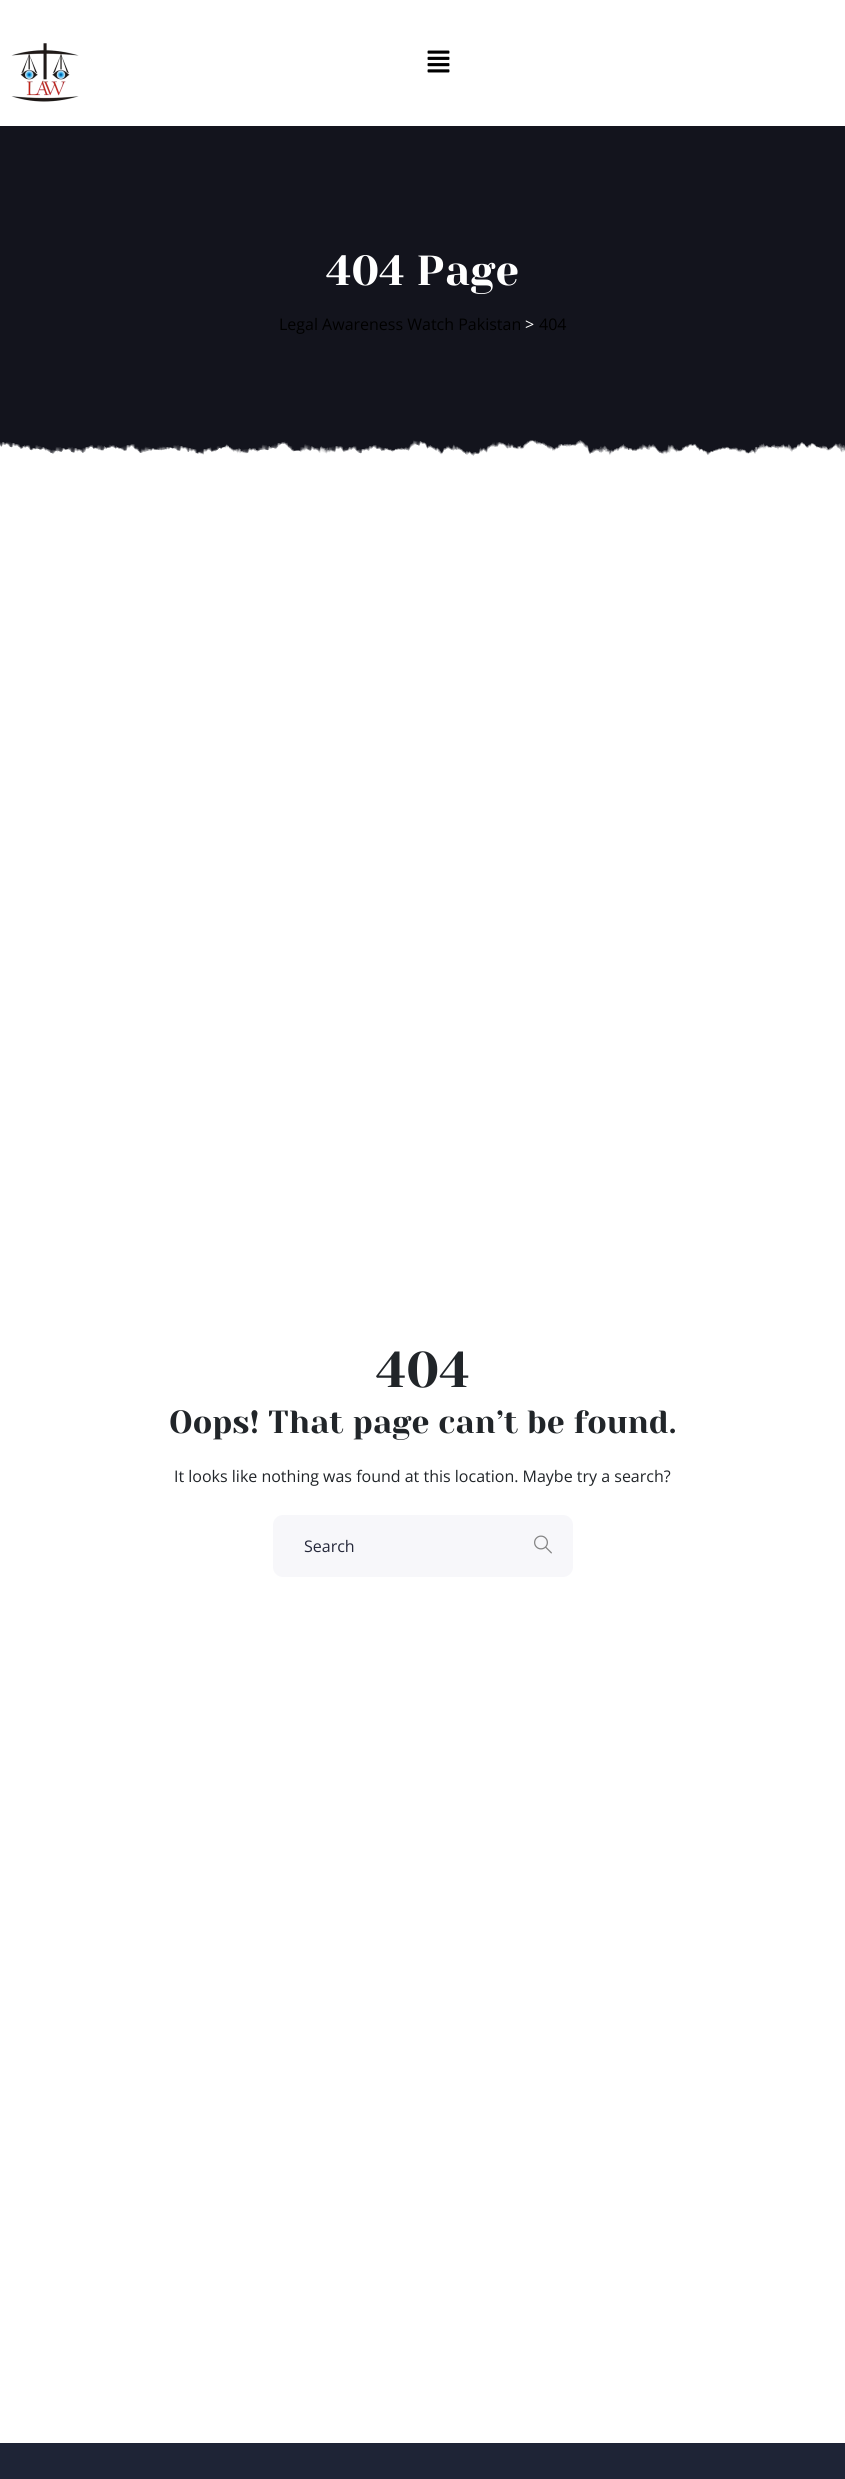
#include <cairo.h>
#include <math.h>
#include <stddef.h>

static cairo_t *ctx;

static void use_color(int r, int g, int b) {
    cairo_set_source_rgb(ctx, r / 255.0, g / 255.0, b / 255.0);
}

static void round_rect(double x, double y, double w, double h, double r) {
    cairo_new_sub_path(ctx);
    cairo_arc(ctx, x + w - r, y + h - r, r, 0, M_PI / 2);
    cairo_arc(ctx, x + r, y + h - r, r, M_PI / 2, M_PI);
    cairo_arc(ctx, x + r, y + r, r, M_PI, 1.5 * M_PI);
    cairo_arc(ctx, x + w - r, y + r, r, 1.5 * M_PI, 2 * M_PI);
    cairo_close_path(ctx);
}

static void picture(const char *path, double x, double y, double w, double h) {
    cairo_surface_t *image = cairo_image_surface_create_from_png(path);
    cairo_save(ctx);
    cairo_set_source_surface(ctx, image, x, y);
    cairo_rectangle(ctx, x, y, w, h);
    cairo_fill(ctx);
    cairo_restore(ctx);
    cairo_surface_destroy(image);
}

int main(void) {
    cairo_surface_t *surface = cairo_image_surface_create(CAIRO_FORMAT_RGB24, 845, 2479);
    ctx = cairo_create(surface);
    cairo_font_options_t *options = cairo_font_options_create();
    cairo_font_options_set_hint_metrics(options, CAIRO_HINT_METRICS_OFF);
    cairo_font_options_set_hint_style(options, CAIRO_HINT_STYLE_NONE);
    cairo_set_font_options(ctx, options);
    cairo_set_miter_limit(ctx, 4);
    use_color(255, 255, 255);
    cairo_paint(ctx);
    picture("img1.png", 11, 43, 68, 59);
    picture("img2.png", 427, 50, 23, 23);
    use_color(19, 20, 29);
    cairo_rectangle(ctx, 0, 126, 845, 330);
    cairo_fill(ctx);
    cairo_select_font_face(ctx, "Yeseva One", CAIRO_FONT_SLANT_NORMAL, CAIRO_FONT_WEIGHT_NORMAL);
    cairo_set_font_size(ctx, 42);
    use_color(255, 255, 255);
    cairo_move_to(ctx, 326, 285);
    cairo_show_text(ctx, "404 Page");
    cairo_select_font_face(ctx, "Open Sans", CAIRO_FONT_SLANT_NORMAL, CAIRO_FONT_WEIGHT_NORMAL);
    cairo_set_font_size(ctx, 16);
    use_color(0, 0, 0);
    cairo_move_to(ctx, 279, 330);
    cairo_show_text(ctx, "Legal Awareness Watch Pakistan");
    use_color(255, 255, 255);
    cairo_move_to(ctx, 525, 330);
    cairo_show_text(ctx, ">");
    use_color(0, 0, 0);
    cairo_move_to(ctx, 539, 330);
    cairo_show_text(ctx, "404");
    picture("img3.png", 0, 440, 845, 19);
    cairo_select_font_face(ctx, "Yeseva One", CAIRO_FONT_SLANT_NORMAL, CAIRO_FONT_WEIGHT_NORMAL);
    cairo_set_font_size(ctx, 50);
    use_color(33, 37, 41);
    cairo_move_to(ctx, 376, 1387);
    cairo_show_text(ctx, "404");
    cairo_set_font_size(ctx, 32);
    cairo_move_to(ctx, 169, 1433);
    cairo_show_text(ctx, "Oops! That page can’t be found.");
    cairo_select_font_face(ctx, "Open Sans", CAIRO_FONT_SLANT_NORMAL, CAIRO_FONT_WEIGHT_NORMAL);
    cairo_set_font_size(ctx, 16);
    cairo_move_to(ctx, 174, 1482);
    cairo_show_text(ctx, "It looks like nothing was found at this location. Maybe try a search?");
    use_color(247, 247, 250);
    round_rect(273, 1515, 300, 62, 10);
    cairo_fill(ctx);
    use_color(37, 40, 58);
    cairo_move_to(ctx, 304, 1552);
    cairo_show_text(ctx, "Search");
    picture("img4.png", 534, 1535, 18, 19);
    use_color(30, 36, 54);
    cairo_rectangle(ctx, 0, 2443, 845, 36);
    cairo_fill(ctx);
    cairo_surface_write_to_png(surface, "result.png");
    cairo_font_options_destroy(options);
    cairo_destroy(ctx);
    cairo_surface_destroy(surface);
    return 0;
}
